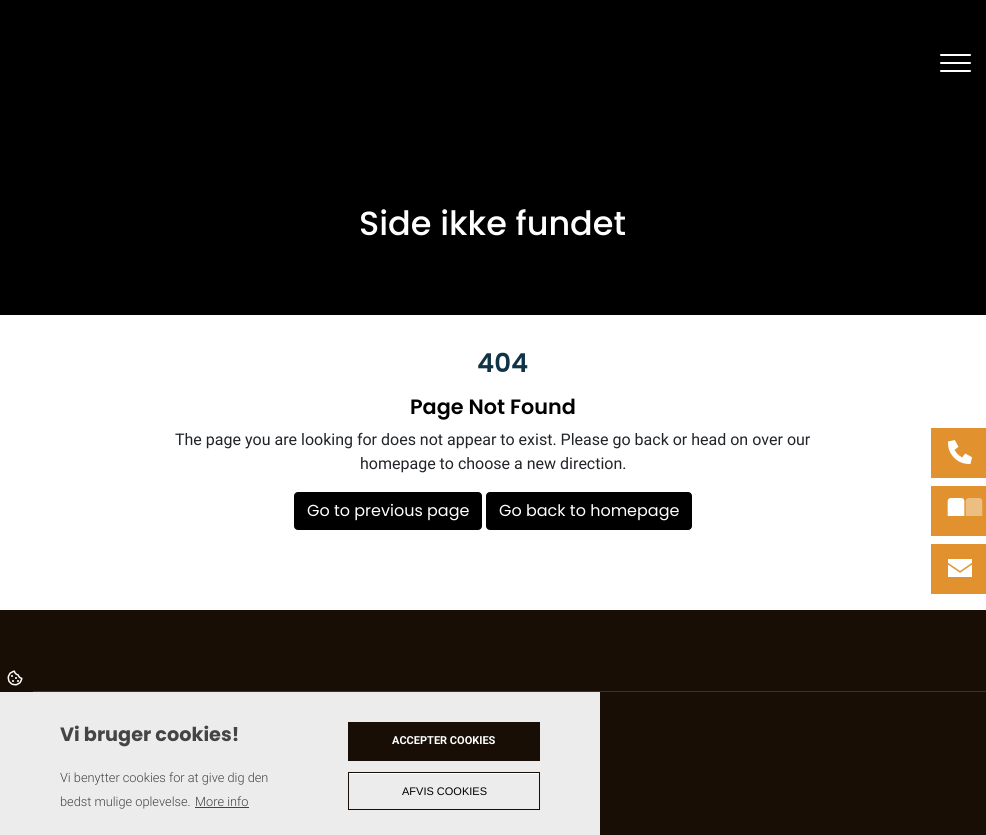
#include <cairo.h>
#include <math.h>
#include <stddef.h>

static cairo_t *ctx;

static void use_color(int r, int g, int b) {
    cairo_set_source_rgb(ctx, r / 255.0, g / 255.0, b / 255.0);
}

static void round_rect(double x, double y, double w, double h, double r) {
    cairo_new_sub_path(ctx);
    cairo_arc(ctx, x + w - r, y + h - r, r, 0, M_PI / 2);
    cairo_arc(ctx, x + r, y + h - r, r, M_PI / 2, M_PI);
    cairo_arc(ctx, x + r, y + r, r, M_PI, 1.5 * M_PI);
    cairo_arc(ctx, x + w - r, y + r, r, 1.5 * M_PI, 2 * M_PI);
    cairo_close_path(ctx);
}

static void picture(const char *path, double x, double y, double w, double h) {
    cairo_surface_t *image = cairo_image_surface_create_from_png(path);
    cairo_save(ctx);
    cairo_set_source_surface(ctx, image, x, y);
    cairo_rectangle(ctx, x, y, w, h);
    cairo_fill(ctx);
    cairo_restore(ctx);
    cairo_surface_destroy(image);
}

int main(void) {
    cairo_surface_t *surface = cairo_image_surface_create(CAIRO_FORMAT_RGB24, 986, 835);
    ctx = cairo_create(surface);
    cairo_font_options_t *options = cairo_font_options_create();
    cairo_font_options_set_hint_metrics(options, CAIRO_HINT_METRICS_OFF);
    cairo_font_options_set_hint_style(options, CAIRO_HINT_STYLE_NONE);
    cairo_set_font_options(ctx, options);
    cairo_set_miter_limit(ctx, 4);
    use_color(255, 255, 255);
    cairo_paint(ctx);
    use_color(0, 0, 0);
    cairo_rectangle(ctx, 0, 0, 986, 315);
    cairo_fill(ctx);
    use_color(255, 255, 255);
    round_rect(940, 62, 31, 2, 1);
    cairo_fill(ctx);
    round_rect(940, 54, 31, 2, 1);
    cairo_fill(ctx);
    round_rect(940, 70, 31, 2, 1);
    cairo_fill(ctx);
    cairo_select_font_face(ctx, "Poppins Medium", CAIRO_FONT_SLANT_NORMAL, CAIRO_FONT_WEIGHT_NORMAL);
    cairo_set_font_size(ctx, 33.5);
    cairo_move_to(ctx, 359, 235);
    cairo_show_text(ctx, "Side ikke fundet");
    cairo_select_font_face(ctx, "Poppins SemiBold", CAIRO_FONT_SLANT_NORMAL, CAIRO_FONT_WEIGHT_NORMAL);
    cairo_set_font_size(ctx, 26);
    use_color(16, 51, 71);
    cairo_move_to(ctx, 477, 372);
    cairo_show_text(ctx, "404");
    cairo_set_font_size(ctx, 20.75);
    use_color(0, 0, 0);
    cairo_move_to(ctx, 410, 414);
    cairo_show_text(ctx, "Page Not Found");
    cairo_select_font_face(ctx, "Roboto", CAIRO_FONT_SLANT_NORMAL, CAIRO_FONT_WEIGHT_NORMAL);
    cairo_set_font_size(ctx, 16);
    use_color(33, 36, 41);
    cairo_move_to(ctx, 175, 445);
    cairo_show_text(ctx, "The page you are looking for does not appear to exist. Please go back or head on over our");
    cairo_move_to(ctx, 360, 469);
    cairo_show_text(ctx, "homepage to choose a new direction.");
    use_color(0, 0, 0);
    round_rect(294.5, 492.5, 187, 37, 3.5);
    cairo_fill_preserve(ctx);
    cairo_set_line_width(ctx, 1);
    cairo_stroke(ctx);
    cairo_select_font_face(ctx, "Poppins", CAIRO_FONT_SLANT_NORMAL, CAIRO_FONT_WEIGHT_NORMAL);
    use_color(255, 255, 255);
    cairo_move_to(ctx, 307, 516);
    cairo_show_text(ctx, "Go to previous page");
    use_color(0, 0, 0);
    round_rect(486.5, 492.5, 205, 37, 3.5);
    cairo_fill_preserve(ctx);
    cairo_stroke(ctx);
    use_color(255, 255, 255);
    cairo_move_to(ctx, 499, 516);
    cairo_show_text(ctx, "Go back to homepage");
    use_color(225, 146, 47);
    cairo_rectangle(ctx, 931, 428, 55, 50);
    cairo_fill(ctx);
    picture("img1.png", 948, 440, 24, 24);
    cairo_rectangle(ctx, 931, 486, 55, 50);
    cairo_fill(ctx);
    picture("img2.png", 947, 498, 18, 18);
    picture("img3.png", 947, 498, 36, 18);
    cairo_rectangle(ctx, 931, 544, 55, 50);
    cairo_fill(ctx);
    picture("img4.png", 948, 559, 24, 18);
    use_color(24, 14, 5);
    cairo_rectangle(ctx, 0, 610, 986, 225);
    cairo_fill(ctx);
    use_color(59, 50, 43);
    cairo_rectangle(ctx, 33, 691, 953, 1);
    cairo_fill(ctx);
    use_color(236, 236, 236);
    cairo_rectangle(ctx, 0, 692, 600, 143);
    cairo_fill(ctx);
    picture("img5.png", 7, 670, 16, 16);
    cairo_select_font_face(ctx, "Poppins", CAIRO_FONT_SLANT_NORMAL, CAIRO_FONT_WEIGHT_BOLD);
    cairo_set_font_size(ctx, 19.25);
    use_color(68, 68, 68);
    cairo_move_to(ctx, 60, 741);
    cairo_show_text(ctx, "Vi bruger cookies!");
    cairo_select_font_face(ctx, "Roboto Light", CAIRO_FONT_SLANT_NORMAL, CAIRO_FONT_WEIGHT_NORMAL);
    cairo_set_font_size(ctx, 12.75);
    cairo_move_to(ctx, 60, 782);
    cairo_show_text(ctx, "Vi benytter cookies for at give dig den");
    cairo_move_to(ctx, 60, 806);
    cairo_show_text(ctx, "bedst mulige oplevelse.");
    cairo_move_to(ctx, 195, 806);
    cairo_show_text(ctx, "More info");
    cairo_rectangle(ctx, 195, 807, 54, 1);
    cairo_fill(ctx);
    use_color(24, 14, 5);
    cairo_rectangle(ctx, 348, 722, 192, 39);
    cairo_fill(ctx);
    cairo_select_font_face(ctx, "Roboto", CAIRO_FONT_SLANT_NORMAL, CAIRO_FONT_WEIGHT_BOLD);
    cairo_set_font_size(ctx, 11);
    use_color(255, 255, 255);
    cairo_move_to(ctx, 392, 744);
    cairo_show_text(ctx, "ACCEPTER COOKIES");
    cairo_rectangle(ctx, 349, 773, 190, 1);
    cairo_fill(ctx);
    cairo_rectangle(ctx, 348.5, 772.5, 191, 37);
    use_color(24, 14, 5);
    cairo_stroke(ctx);
    cairo_select_font_face(ctx, "Liberation Sans", CAIRO_FONT_SLANT_NORMAL, CAIRO_FONT_WEIGHT_NORMAL);
    use_color(0, 0, 0);
    cairo_move_to(ctx, 402, 795);
    cairo_show_text(ctx, "AFVIS COOKIES");
    cairo_surface_write_to_png(surface, "result.png");
    cairo_font_options_destroy(options);
    cairo_destroy(ctx);
    cairo_surface_destroy(surface);
    return 0;
}
